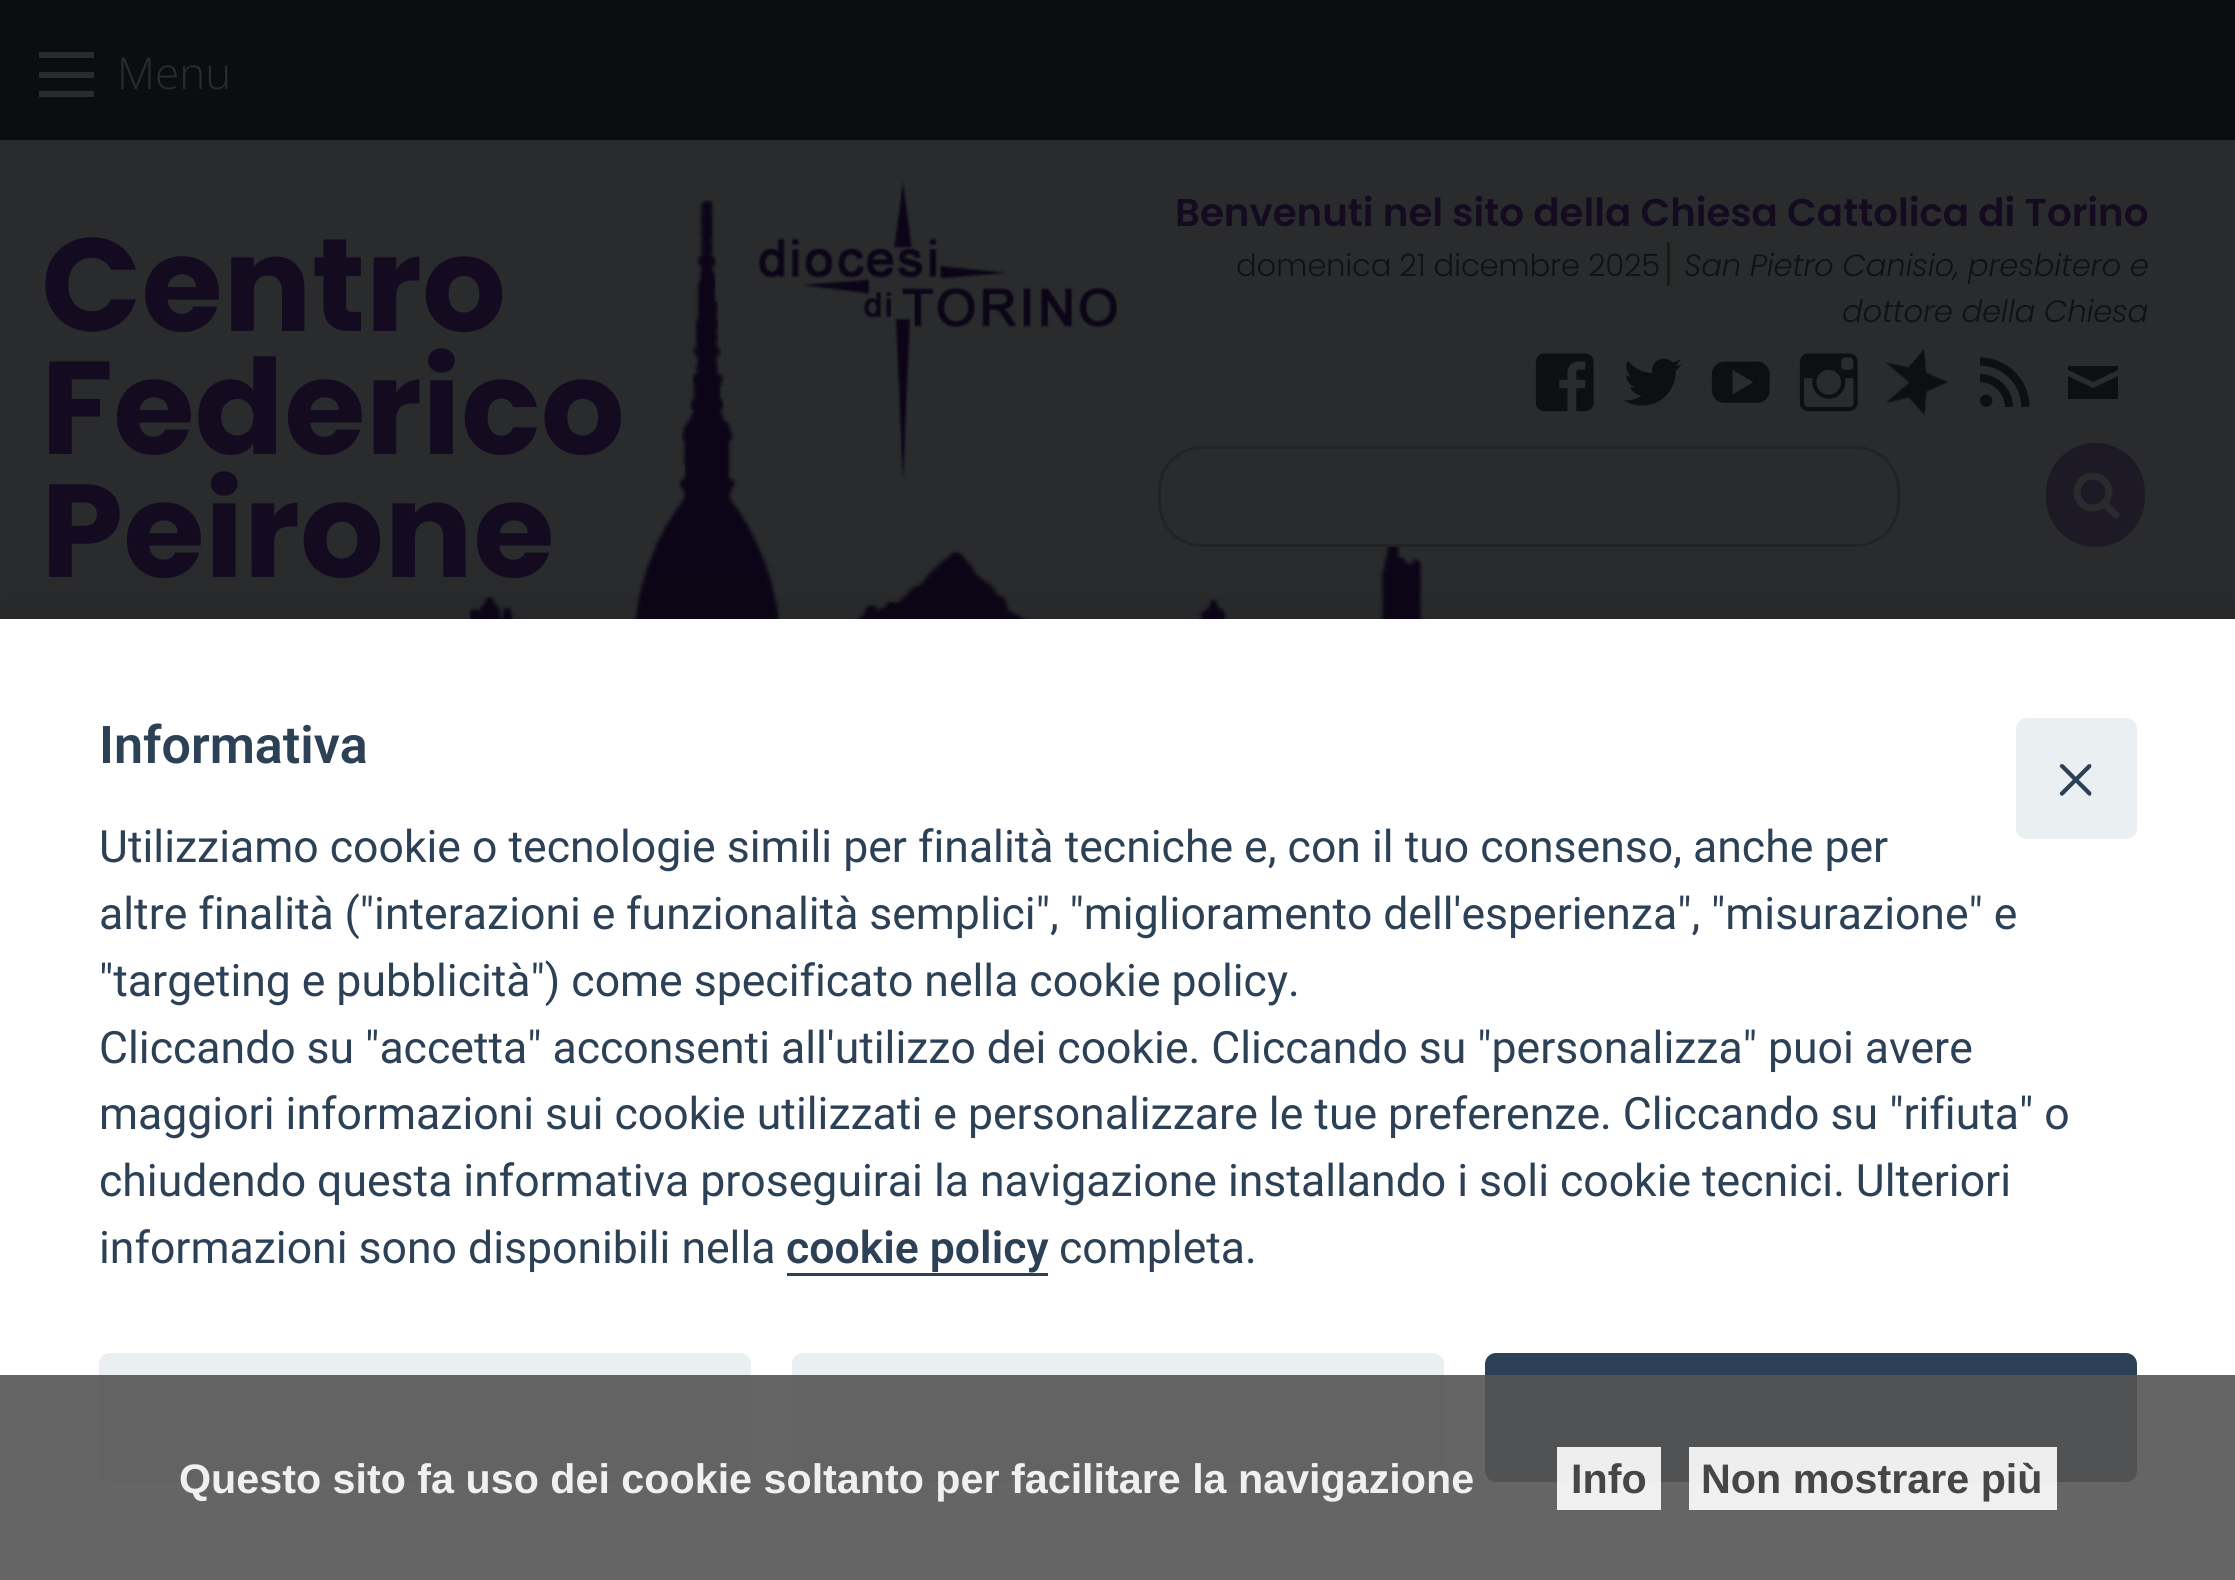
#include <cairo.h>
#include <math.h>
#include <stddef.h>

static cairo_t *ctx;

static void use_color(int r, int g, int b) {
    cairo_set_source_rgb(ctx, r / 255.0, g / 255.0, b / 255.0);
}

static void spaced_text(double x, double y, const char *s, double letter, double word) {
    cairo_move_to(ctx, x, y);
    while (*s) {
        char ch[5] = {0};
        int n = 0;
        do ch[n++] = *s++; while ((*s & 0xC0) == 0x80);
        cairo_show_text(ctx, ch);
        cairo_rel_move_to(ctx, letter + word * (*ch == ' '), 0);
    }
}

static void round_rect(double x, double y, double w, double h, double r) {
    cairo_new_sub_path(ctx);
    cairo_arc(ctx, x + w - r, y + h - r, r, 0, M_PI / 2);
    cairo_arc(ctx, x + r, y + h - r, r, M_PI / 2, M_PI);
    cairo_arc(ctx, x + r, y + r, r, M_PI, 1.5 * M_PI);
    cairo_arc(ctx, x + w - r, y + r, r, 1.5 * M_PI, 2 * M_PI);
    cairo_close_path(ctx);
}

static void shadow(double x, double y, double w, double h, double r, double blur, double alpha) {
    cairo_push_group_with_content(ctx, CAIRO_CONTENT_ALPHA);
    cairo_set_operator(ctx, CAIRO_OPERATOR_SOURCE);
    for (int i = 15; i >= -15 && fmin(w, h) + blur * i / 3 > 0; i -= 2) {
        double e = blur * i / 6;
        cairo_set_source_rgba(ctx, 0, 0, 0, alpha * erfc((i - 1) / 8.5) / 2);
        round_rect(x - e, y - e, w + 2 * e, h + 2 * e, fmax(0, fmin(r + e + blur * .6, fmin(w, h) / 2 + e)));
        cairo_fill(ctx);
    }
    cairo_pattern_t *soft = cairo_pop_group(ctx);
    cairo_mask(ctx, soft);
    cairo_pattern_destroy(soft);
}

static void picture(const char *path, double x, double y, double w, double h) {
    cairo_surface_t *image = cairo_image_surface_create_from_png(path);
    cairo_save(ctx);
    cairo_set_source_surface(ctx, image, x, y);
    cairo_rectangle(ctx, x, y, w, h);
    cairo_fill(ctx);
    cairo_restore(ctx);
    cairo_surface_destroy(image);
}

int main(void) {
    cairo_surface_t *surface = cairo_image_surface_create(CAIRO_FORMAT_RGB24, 2235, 1580);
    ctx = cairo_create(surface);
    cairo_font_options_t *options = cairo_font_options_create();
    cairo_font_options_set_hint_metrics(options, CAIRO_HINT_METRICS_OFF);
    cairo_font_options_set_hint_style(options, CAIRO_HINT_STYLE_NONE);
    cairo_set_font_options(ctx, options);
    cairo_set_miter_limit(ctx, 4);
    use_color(41, 43, 45);
    cairo_paint(ctx);
    use_color(11, 13, 14);
    cairo_rectangle(ctx, 0, 0, 2235, 140);
    cairo_fill(ctx);
    use_color(42, 43, 45);
    cairo_rectangle(ctx, 39, 91, 55, 6);
    cairo_fill(ctx);
    cairo_rectangle(ctx, 39, 72, 55, 6);
    cairo_fill(ctx);
    cairo_rectangle(ctx, 39, 52, 55, 6);
    cairo_fill(ctx);
    cairo_select_font_face(ctx, "Open Sans Light", CAIRO_FONT_SLANT_NORMAL, CAIRO_FONT_WEIGHT_NORMAL);
    cairo_set_font_size(ctx, 44);
    cairo_move_to(ctx, 117, 89);
    cairo_show_text(ctx, "Menu");
    picture("img1.png", 467, 200, 1284, 419);
    cairo_select_font_face(ctx, "Poppins", CAIRO_FONT_SLANT_NORMAL, CAIRO_FONT_WEIGHT_BOLD);
    cairo_set_font_size(ctx, 132);
    use_color(20, 11, 33);
    cairo_move_to(ctx, 41, 331);
    cairo_show_text(ctx, "Centro");
    cairo_move_to(ctx, 41, 454);
    cairo_show_text(ctx, "Federico");
    cairo_move_to(ctx, 41, 577);
    cairo_show_text(ctx, "Peirone");
    picture("img2.png", 758, 181, 359, 300);
    cairo_select_font_face(ctx, "Poppins SemiBold", CAIRO_FONT_SLANT_NORMAL, CAIRO_FONT_WEIGHT_NORMAL);
    cairo_set_font_size(ctx, 38.75);
    cairo_move_to(ctx, 1175, 226);
    cairo_show_text(ctx, "Benvenuti nel sito della Chiesa Cattolica di Torino");
    cairo_select_font_face(ctx, "Poppins Light", CAIRO_FONT_SLANT_NORMAL, CAIRO_FONT_WEIGHT_NORMAL);
    cairo_set_font_size(ctx, 30.75);
    use_color(16, 17, 19);
    spaced_text(1236, 276, "domenica 21 dicembre 2025", -0.25, 0);
    cairo_select_font_face(ctx, "Poppins Light", CAIRO_FONT_SLANT_ITALIC, CAIRO_FONT_WEIGHT_NORMAL);
    spaced_text(1684, 276, "San Pietro Canisio, presbitero e", -0.25, 0);
    use_color(14, 35, 20);
    cairo_rectangle(ctx, 1667, 242, 3, 44);
    cairo_fill(ctx);
    use_color(16, 17, 19);
    spaced_text(1842, 322, "dottore della Chiesa", -0.25, 0);
    picture("img3.png", 1535, 353, 59, 59);
    picture("img4.png", 1624, 358, 58, 48);
    picture("img5.png", 1711, 361, 59, 42);
    picture("img6.png", 1799, 353, 59, 59);
    picture("img7.png", 1885, 348, 64, 68);
    picture("img8.png", 1980, 357, 50, 50);
    use_color(14, 15, 17);
    cairo_new_path(ctx);
    cairo_move_to(ctx, 2068, 366);
    cairo_line_to(ctx, 2118, 366);
    cairo_line_to(ctx, 2118, 370);
    cairo_line_to(ctx, 2093, 382);
    cairo_line_to(ctx, 2068, 370);
    cairo_close_path(ctx);
    cairo_move_to(ctx, 2068, 376);
    cairo_line_to(ctx, 2093, 388);
    cairo_line_to(ctx, 2118, 376);
    cairo_line_to(ctx, 2118, 399);
    cairo_line_to(ctx, 2068, 399);
    cairo_close_path(ctx);
    cairo_fill(ctx);
    use_color(42, 43, 45);
    round_rect(1159.5, 447.5, 739, 98, 42.5);
    cairo_fill_preserve(ctx);
    use_color(34, 35, 37);
    cairo_set_line_width(ctx, 3);
    cairo_stroke(ctx);
    use_color(29, 25, 37);
    round_rect(2046, 443, 99, 104, 49.5);
    cairo_fill(ctx);
    picture("img9.png", 2073, 472, 47, 47);
    use_color(2, 2, 3);
    shadow(0, 649, 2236, 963, 0, 46.5, 0.28);
    use_color(255, 255, 255);
    cairo_rectangle(ctx, 0, 619, 2235, 961);
    cairo_fill(ctx);
    cairo_select_font_face(ctx, "Roboto SemiBold", CAIRO_FONT_SLANT_NORMAL, CAIRO_FONT_WEIGHT_NORMAL);
    cairo_set_font_size(ctx, 52);
    use_color(45, 65, 86);
    cairo_move_to(ctx, 99, 763);
    cairo_show_text(ctx, "Informativa");
    cairo_select_font_face(ctx, "Roboto", CAIRO_FONT_SLANT_NORMAL, CAIRO_FONT_WEIGHT_NORMAL);
    cairo_set_font_size(ctx, 44.55);
    cairo_move_to(ctx, 99, 862);
    cairo_show_text(ctx, "Utilizziamo cookie o tecnologie simili per finalità tecniche e, con il tuo consenso, anche per");
    spaced_text(99, 929, "altre finalità (\"interazioni e funzionalità semplici\", \"miglioramento dell'esperienza\", \"misurazione\" e", 0, -0.25);
    spaced_text(99, 996, "\"targeting e pubblicità\") come specificato nella cookie policy.", 0, -0.1);
    spaced_text(99, 1063, "Cliccando su \"accetta\" acconsenti all'utilizzo dei cookie. Cliccando su \"personalizza\" puoi avere", 0, -0.1);
    cairo_move_to(ctx, 99, 1129);
    cairo_show_text(ctx, "maggiori informazioni sui cookie utilizzati e personalizzare le tue preferenze. Cliccando su \"rifiuta\" o");
    spaced_text(99, 1196, "chiudendo questa informativa proseguirai la navigazione installando i soli cookie tecnici. Ulteriori", 0, -0.1);
    cairo_move_to(ctx, 99, 1263);
    cairo_show_text(ctx, "informazioni sono disponibili nella");
    cairo_select_font_face(ctx, "Roboto SemiBold", CAIRO_FONT_SLANT_NORMAL, CAIRO_FONT_WEIGHT_NORMAL);
    cairo_move_to(ctx, 786, 1263);
    cairo_show_text(ctx, "cookie policy");
    cairo_rectangle(ctx, 787, 1273, 261, 3);
    cairo_fill(ctx);
    cairo_select_font_face(ctx, "Roboto", CAIRO_FONT_SLANT_NORMAL, CAIRO_FONT_WEIGHT_NORMAL);
    cairo_move_to(ctx, 1059, 1263);
    cairo_show_text(ctx, "completa.");
    use_color(234, 239, 242);
    round_rect(99, 1353, 652, 129, 11);
    cairo_fill(ctx);
    round_rect(792, 1353, 652, 129, 11);
    cairo_fill(ctx);
    use_color(45, 65, 86);
    round_rect(1485, 1353, 652, 129, 11);
    cairo_fill(ctx);
    use_color(234, 239, 242);
    round_rect(2016, 718, 121, 121, 11);
    cairo_fill(ctx);
    use_color(45, 65, 86);
    cairo_new_path(ctx);
    cairo_move_to(ctx, 2091, 764.5);
    cairo_curve_to(ctx, 2091.5, 765.5, 2091.5, 766.5, 2091, 767.5);
    cairo_line_to(ctx, 2063.5, 795);
    cairo_curve_to(ctx, 2062.5, 796, 2061, 796, 2060.5, 795);
    cairo_curve_to(ctx, 2059.5, 794, 2059.5, 793, 2060.5, 792);
    cairo_line_to(ctx, 2088, 764.5);
    cairo_curve_to(ctx, 2089, 764, 2090, 764, 2091, 764.5);
    cairo_close_path(ctx);
    cairo_fill(ctx);
    cairo_new_path(ctx);
    cairo_move_to(ctx, 2060.5, 764.5);
    cairo_curve_to(ctx, 2061, 764, 2062.5, 764, 2063.5, 764.5);
    cairo_line_to(ctx, 2091, 792);
    cairo_curve_to(ctx, 2091.5, 793, 2091.5, 794, 2091, 795);
    cairo_curve_to(ctx, 2090, 796, 2089, 796, 2088, 795);
    cairo_line_to(ctx, 2060.5, 767.5);
    cairo_curve_to(ctx, 2059.5, 766.5, 2059.5, 765.5, 2060.5, 764.5);
    cairo_close_path(ctx);
    cairo_fill(ctx);
    cairo_set_source_rgba(ctx, 0.333, 0.333, 0.333, 0.9);
    cairo_rectangle(ctx, 0, 1375, 2235, 205);
    cairo_fill(ctx);
    cairo_select_font_face(ctx, "Liberation Sans", CAIRO_FONT_SLANT_NORMAL, CAIRO_FONT_WEIGHT_BOLD);
    cairo_set_font_size(ctx, 41.25);
    use_color(240, 240, 240);
    cairo_move_to(ctx, 179, 1493);
    cairo_show_text(ctx, "Questo sito fa uso dei cookie soltanto per facilitare la navigazione");
    cairo_set_source_rgba(ctx, 1, 1, 1, 0.9);
    cairo_rectangle(ctx, 1557, 1447, 104, 63);
    cairo_fill(ctx);
    use_color(70, 70, 70);
    cairo_move_to(ctx, 1571, 1493);
    cairo_show_text(ctx, "Info");
    cairo_set_source_rgba(ctx, 1, 1, 1, 0.9);
    cairo_rectangle(ctx, 1689, 1447, 368, 63);
    cairo_fill(ctx);
    use_color(70, 70, 70);
    cairo_move_to(ctx, 1701, 1493);
    cairo_show_text(ctx, "Non mostrare più");
    cairo_surface_write_to_png(surface, "result.png");
    cairo_font_options_destroy(options);
    cairo_destroy(ctx);
    cairo_surface_destroy(surface);
    return 0;
}
